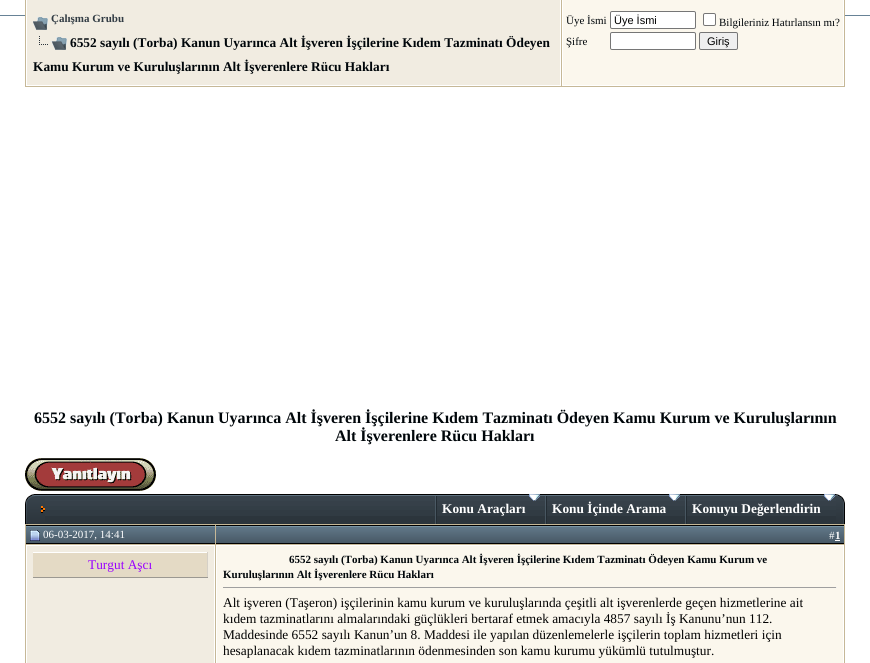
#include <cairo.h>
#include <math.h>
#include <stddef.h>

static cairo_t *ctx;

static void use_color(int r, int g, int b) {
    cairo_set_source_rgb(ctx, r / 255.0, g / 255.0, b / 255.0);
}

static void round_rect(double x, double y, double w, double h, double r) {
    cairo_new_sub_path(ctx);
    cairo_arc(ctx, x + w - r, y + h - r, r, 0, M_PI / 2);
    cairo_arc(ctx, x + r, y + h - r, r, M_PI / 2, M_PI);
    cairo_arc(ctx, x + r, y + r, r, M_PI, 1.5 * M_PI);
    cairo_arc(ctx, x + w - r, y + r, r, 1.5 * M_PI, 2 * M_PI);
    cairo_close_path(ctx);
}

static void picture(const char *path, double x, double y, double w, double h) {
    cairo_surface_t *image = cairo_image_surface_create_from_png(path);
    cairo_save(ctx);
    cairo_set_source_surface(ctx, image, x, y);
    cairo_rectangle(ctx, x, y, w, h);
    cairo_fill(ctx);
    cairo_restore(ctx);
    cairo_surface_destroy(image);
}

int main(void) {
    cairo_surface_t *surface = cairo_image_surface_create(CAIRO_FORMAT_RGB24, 870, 663);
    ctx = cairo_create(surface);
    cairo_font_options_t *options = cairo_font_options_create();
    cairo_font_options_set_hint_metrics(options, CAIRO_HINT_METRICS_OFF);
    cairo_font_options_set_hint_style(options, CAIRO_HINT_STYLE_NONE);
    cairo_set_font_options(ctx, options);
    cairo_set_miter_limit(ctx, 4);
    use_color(255, 255, 255);
    cairo_paint(ctx);
    use_color(103, 130, 150);
    cairo_rectangle(ctx, 0, 15, 870, 1);
    cairo_fill(ctx);
    use_color(198, 184, 151);
    cairo_rectangle(ctx, 25, 0, 820, 87);
    cairo_fill(ctx);
    use_color(241, 236, 225);
    cairo_rectangle(ctx, 26.5, -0.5, 534, 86);
    cairo_fill_preserve(ctx);
    use_color(255, 255, 255);
    cairo_set_line_width(ctx, 1);
    cairo_stroke(ctx);
    picture("img1.png", 33, 17, 15, 13);
    cairo_select_font_face(ctx, "Liberation Serif", CAIRO_FONT_SLANT_NORMAL, CAIRO_FONT_WEIGHT_BOLD);
    cairo_set_font_size(ctx, 11);
    use_color(50, 60, 68);
    cairo_move_to(ctx, 51, 22);
    cairo_show_text(ctx, "Çalışma Grubu");
    picture("img2.png", 39, 36, 28, 14);
    cairo_set_font_size(ctx, 13.35);
    use_color(0, 6, 10);
    cairo_move_to(ctx, 70, 47);
    cairo_show_text(ctx, "6552 sayılı (Torba) Kanun Uyarınca Alt İşveren İşçilerine Kıdem Tazminatı Ödeyen");
    cairo_move_to(ctx, 33, 71);
    cairo_show_text(ctx, "Kamu Kurum ve Kuruluşlarının Alt İşverenlere Rücu Hakları");
    use_color(251, 247, 237);
    cairo_rectangle(ctx, 562.5, -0.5, 281, 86);
    cairo_fill_preserve(ctx);
    use_color(255, 255, 255);
    cairo_stroke(ctx);
    cairo_select_font_face(ctx, "Liberation Serif", CAIRO_FONT_SLANT_NORMAL, CAIRO_FONT_WEIGHT_NORMAL);
    cairo_set_font_size(ctx, 11);
    use_color(0, 6, 10);
    cairo_move_to(ctx, 566, 24);
    cairo_show_text(ctx, "Üye İsmi");
    use_color(255, 255, 255);
    round_rect(610.5, 11.5, 85, 17, 1.5);
    cairo_fill_preserve(ctx);
    use_color(118, 118, 118);
    cairo_stroke(ctx);
    cairo_select_font_face(ctx, "Liberation Sans", CAIRO_FONT_SLANT_NORMAL, CAIRO_FONT_WEIGHT_NORMAL);
    use_color(0, 0, 0);
    cairo_move_to(ctx, 614, 24);
    cairo_show_text(ctx, "Üye İsmi");
    use_color(255, 255, 255);
    round_rect(703.5, 13.5, 12, 12, 1.5);
    cairo_fill_preserve(ctx);
    use_color(118, 118, 118);
    cairo_stroke(ctx);
    cairo_select_font_face(ctx, "Liberation Serif", CAIRO_FONT_SLANT_NORMAL, CAIRO_FONT_WEIGHT_NORMAL);
    use_color(0, 6, 10);
    cairo_move_to(ctx, 719, 26);
    cairo_show_text(ctx, "Bilgileriniz Hatırlansın mı?");
    cairo_move_to(ctx, 566, 45);
    cairo_show_text(ctx, "Şifre");
    use_color(255, 255, 255);
    round_rect(610.5, 32.5, 85, 17, 1.5);
    cairo_fill_preserve(ctx);
    use_color(118, 118, 118);
    cairo_stroke(ctx);
    use_color(239, 239, 239);
    round_rect(699.5, 32.5, 38, 17, 1.5);
    cairo_fill_preserve(ctx);
    use_color(118, 118, 118);
    cairo_stroke(ctx);
    cairo_select_font_face(ctx, "Liberation Sans", CAIRO_FONT_SLANT_NORMAL, CAIRO_FONT_WEIGHT_NORMAL);
    use_color(0, 0, 0);
    cairo_move_to(ctx, 707, 45);
    cairo_show_text(ctx, "Giriş");
    cairo_select_font_face(ctx, "Liberation Serif", CAIRO_FONT_SLANT_NORMAL, CAIRO_FONT_WEIGHT_BOLD);
    cairo_set_font_size(ctx, 16);
    use_color(0, 6, 10);
    cairo_move_to(ctx, 34, 423);
    cairo_show_text(ctx, "6552 sayılı (Torba) Kanun Uyarınca Alt İşveren İşçilerine Kıdem Tazminatı Ödeyen Kamu Kurum ve Kuruluşlarının");
    cairo_move_to(ctx, 335, 441);
    cairo_show_text(ctx, "Alt İşverenlere Rücu Hakları");
    picture("img3.png", 25, 458, 131, 33);
    use_color(44, 53, 60);
    cairo_rectangle(ctx, 45, 516, 791, 8);
    cairo_fill(ctx);
    picture("img4.png", 45, 494, 791, 22);
    picture("img5.png", 25, 494, 20, 30);
    picture("img6.png", 435, 496, 2, 28);
    picture("img7.png", 529, 494, 11, 7);
    cairo_set_font_size(ctx, 13.35);
    use_color(255, 255, 255);
    cairo_move_to(ctx, 442, 513);
    cairo_show_text(ctx, "Konu Araçları");
    picture("img6.png", 545, 496, 2, 28);
    picture("img7.png", 669, 494, 11, 7);
    cairo_move_to(ctx, 552, 513);
    cairo_show_text(ctx, "Konu İçinde Arama");
    picture("img6.png", 685, 496, 2, 28);
    picture("img7.png", 824, 494, 11, 7);
    cairo_move_to(ctx, 692, 513);
    cairo_show_text(ctx, "Konuyu Değerlendirin");
    picture("img8.png", 836, 494, 9, 30);
    use_color(198, 184, 151);
    cairo_rectangle(ctx, 25, 524, 820, 139);
    cairo_fill(ctx);
    picture("img9.png", 26, 525, 189, 19);
    picture("img10.png", 30, 530, 10, 11);
    cairo_select_font_face(ctx, "Liberation Serif", CAIRO_FONT_SLANT_NORMAL, CAIRO_FONT_WEIGHT_NORMAL);
    cairo_set_font_size(ctx, 11);
    use_color(255, 255, 255);
    cairo_move_to(ctx, 43, 538);
    cairo_show_text(ctx, "06-03-2017, 14:41");
    picture("img11.png", 216, 525, 628, 19);
    cairo_move_to(ctx, 829, 539);
    cairo_show_text(ctx, "#");
    cairo_select_font_face(ctx, "Liberation Serif", CAIRO_FONT_SLANT_NORMAL, CAIRO_FONT_WEIGHT_BOLD);
    cairo_move_to(ctx, 835, 539);
    cairo_show_text(ctx, "1");
    cairo_rectangle(ctx, 835, 540, 5, 1);
    cairo_fill(ctx);
    use_color(241, 236, 225);
    cairo_rectangle(ctx, 26.5, 545.5, 188, 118);
    cairo_fill_preserve(ctx);
    use_color(255, 255, 255);
    cairo_stroke(ctx);
    use_color(228, 218, 197);
    cairo_rectangle(ctx, 33, 553, 174, 24);
    cairo_fill(ctx);
    use_color(255, 255, 255);
    cairo_rectangle(ctx, 33, 552, 175, 1);
    cairo_fill(ctx);
    use_color(213, 208, 199);
    cairo_rectangle(ctx, 207, 552, 1, 26);
    cairo_fill(ctx);
    use_color(155, 152, 145);
    cairo_rectangle(ctx, 33, 577, 175, 1);
    cairo_fill(ctx);
    cairo_select_font_face(ctx, "Liberation Serif", CAIRO_FONT_SLANT_NORMAL, CAIRO_FONT_WEIGHT_NORMAL);
    cairo_set_font_size(ctx, 13.35);
    use_color(153, 0, 255);
    cairo_move_to(ctx, 88, 569);
    cairo_show_text(ctx, "Turgut Aşcı");
    use_color(251, 247, 237);
    cairo_rectangle(ctx, 216.5, 545.5, 627, 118);
    cairo_fill_preserve(ctx);
    use_color(255, 255, 255);
    cairo_stroke(ctx);
    cairo_select_font_face(ctx, "Liberation Serif", CAIRO_FONT_SLANT_NORMAL, CAIRO_FONT_WEIGHT_BOLD);
    cairo_set_font_size(ctx, 11);
    use_color(0, 6, 10);
    cairo_move_to(ctx, 289, 563);
    cairo_show_text(ctx, "6552 sayılı (Torba) Kanun Uyarınca Alt İşveren İşçilerine Kıdem Tazminatı Ödeyen Kamu Kurum ve");
    cairo_move_to(ctx, 223, 578);
    cairo_show_text(ctx, "Kuruluşlarının Alt İşverenlere Rücu Hakları");
    use_color(159, 159, 159);
    cairo_rectangle(ctx, 223, 587, 614, 1);
    cairo_fill(ctx);
    use_color(238, 238, 238);
    cairo_rectangle(ctx, 836, 587, 1, 1);
    cairo_fill(ctx);
    cairo_select_font_face(ctx, "Liberation Serif", CAIRO_FONT_SLANT_NORMAL, CAIRO_FONT_WEIGHT_NORMAL);
    cairo_set_font_size(ctx, 13.35);
    use_color(0, 0, 0);
    cairo_move_to(ctx, 223, 607);
    cairo_show_text(ctx, "Alt işveren (Taşeron) işçilerinin kamu kurum ve kuruluşlarında çeşitli alt işverenlerde geçen hizmetlerine ait");
    cairo_move_to(ctx, 223, 623);
    cairo_show_text(ctx, "kıdem tazminatlarını almalarındaki güçlükleri bertaraf etmek amacıyla 4857 sayılı İş Kanunu’nun 112.");
    cairo_move_to(ctx, 223, 639);
    cairo_show_text(ctx, "Maddesinde 6552 sayılı Kanun’un 8. Maddesi ile yapılan düzenlemelerle işçilerin toplam hizmetleri için");
    cairo_move_to(ctx, 223, 655);
    cairo_show_text(ctx, "hesaplanacak kıdem tazminatlarının ödenmesinden son kamu kurumu yükümlü tutulmuştur.");
    cairo_surface_write_to_png(surface, "result.png");
    cairo_font_options_destroy(options);
    cairo_destroy(ctx);
    cairo_surface_destroy(surface);
    return 0;
}
